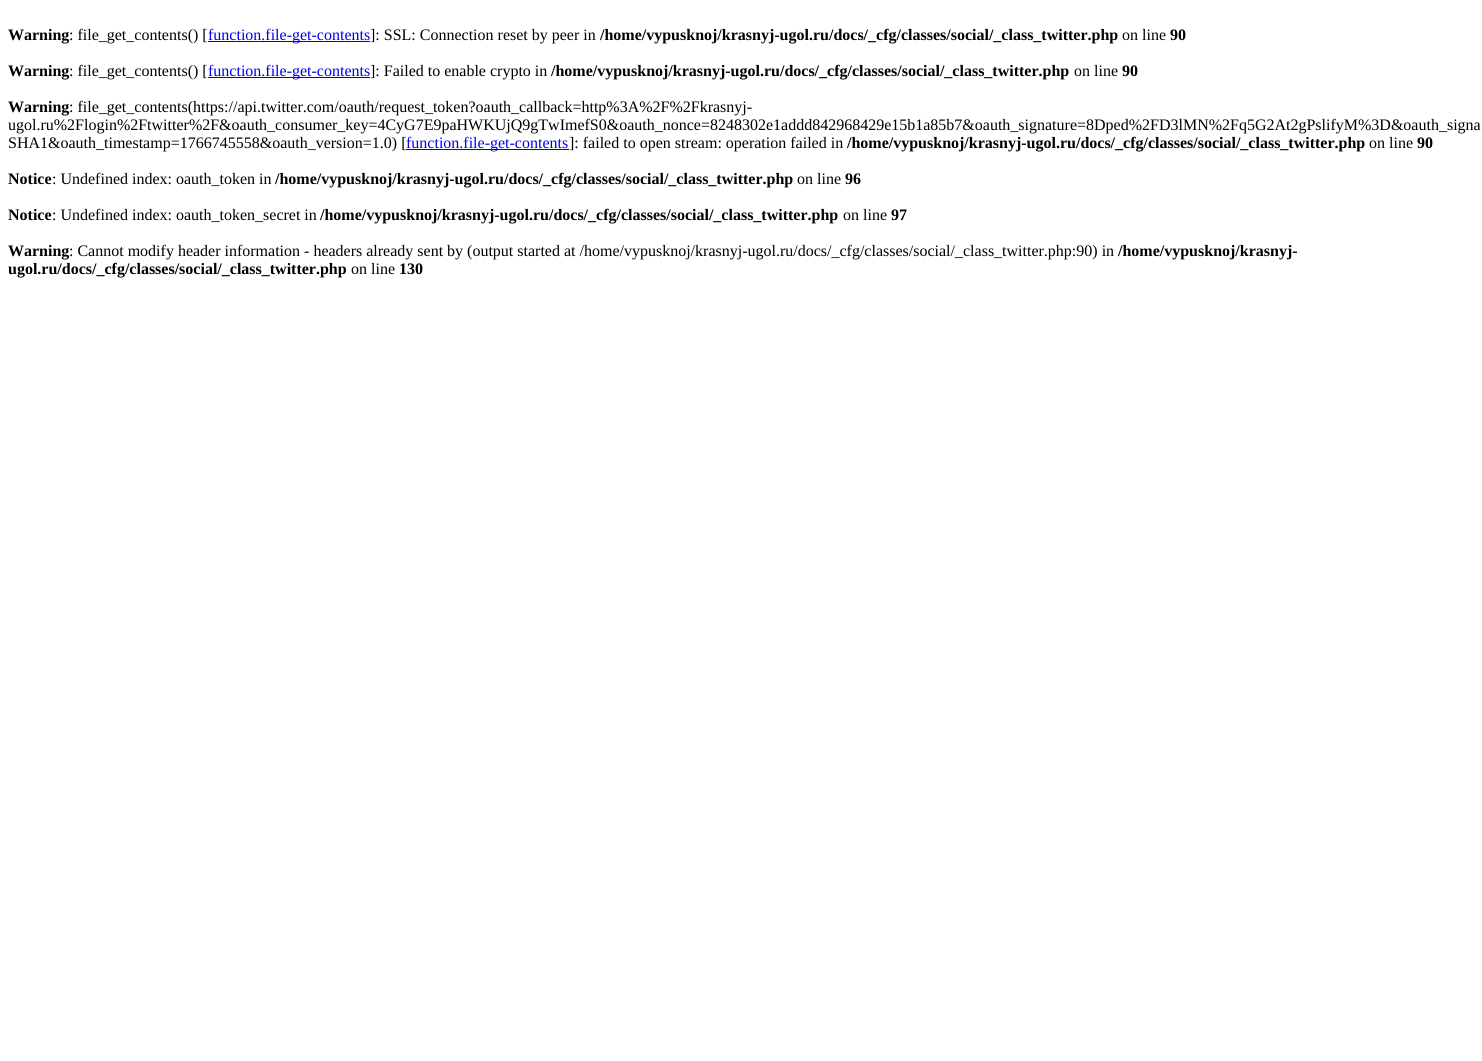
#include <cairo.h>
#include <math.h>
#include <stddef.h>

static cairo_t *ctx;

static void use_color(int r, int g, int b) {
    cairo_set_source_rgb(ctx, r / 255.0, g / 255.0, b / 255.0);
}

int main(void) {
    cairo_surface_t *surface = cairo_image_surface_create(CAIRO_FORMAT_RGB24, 1482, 1061);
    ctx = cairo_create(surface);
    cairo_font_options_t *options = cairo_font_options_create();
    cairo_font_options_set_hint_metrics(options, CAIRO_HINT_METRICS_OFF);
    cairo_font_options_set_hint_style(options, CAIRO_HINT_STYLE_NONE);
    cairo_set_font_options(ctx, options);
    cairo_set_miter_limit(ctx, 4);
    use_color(255, 255, 255);
    cairo_paint(ctx);
    cairo_select_font_face(ctx, "Liberation Serif", CAIRO_FONT_SLANT_NORMAL, CAIRO_FONT_WEIGHT_BOLD);
    cairo_set_font_size(ctx, 16);
    use_color(0, 0, 0);
    cairo_move_to(ctx, 8, 40);
    cairo_show_text(ctx, "Warning");
    cairo_select_font_face(ctx, "Liberation Serif", CAIRO_FONT_SLANT_NORMAL, CAIRO_FONT_WEIGHT_NORMAL);
    cairo_move_to(ctx, 69, 40);
    cairo_show_text(ctx, ": file_get_contents() [");
    use_color(0, 0, 238);
    cairo_rectangle(ctx, 208, 41, 162, 1);
    cairo_fill(ctx);
    cairo_move_to(ctx, 208, 40);
    cairo_show_text(ctx, "function.file-get-contents");
    use_color(0, 0, 0);
    cairo_move_to(ctx, 370, 40);
    cairo_show_text(ctx, "]: SSL: Connection reset by peer in");
    cairo_select_font_face(ctx, "Liberation Serif", CAIRO_FONT_SLANT_NORMAL, CAIRO_FONT_WEIGHT_BOLD);
    cairo_move_to(ctx, 600, 40);
    cairo_show_text(ctx, "/home/vypusknoj/krasnyj-ugol.ru/docs/_cfg/classes/social/_class_twitter.php");
    cairo_select_font_face(ctx, "Liberation Serif", CAIRO_FONT_SLANT_NORMAL, CAIRO_FONT_WEIGHT_NORMAL);
    cairo_move_to(ctx, 1122, 40);
    cairo_show_text(ctx, "on line");
    cairo_select_font_face(ctx, "Liberation Serif", CAIRO_FONT_SLANT_NORMAL, CAIRO_FONT_WEIGHT_BOLD);
    cairo_move_to(ctx, 1170, 40);
    cairo_show_text(ctx, "90");
    cairo_move_to(ctx, 8, 76);
    cairo_show_text(ctx, "Warning");
    cairo_select_font_face(ctx, "Liberation Serif", CAIRO_FONT_SLANT_NORMAL, CAIRO_FONT_WEIGHT_NORMAL);
    cairo_move_to(ctx, 69, 76);
    cairo_show_text(ctx, ": file_get_contents() [");
    use_color(0, 0, 238);
    cairo_rectangle(ctx, 208, 77, 162, 1);
    cairo_fill(ctx);
    cairo_move_to(ctx, 208, 76);
    cairo_show_text(ctx, "function.file-get-contents");
    use_color(0, 0, 0);
    cairo_move_to(ctx, 370, 76);
    cairo_show_text(ctx, "]: Failed to enable crypto in");
    cairo_select_font_face(ctx, "Liberation Serif", CAIRO_FONT_SLANT_NORMAL, CAIRO_FONT_WEIGHT_BOLD);
    cairo_move_to(ctx, 551, 76);
    cairo_show_text(ctx, "/home/vypusknoj/krasnyj-ugol.ru/docs/_cfg/classes/social/_class_twitter.php");
    cairo_select_font_face(ctx, "Liberation Serif", CAIRO_FONT_SLANT_NORMAL, CAIRO_FONT_WEIGHT_NORMAL);
    cairo_move_to(ctx, 1074, 76);
    cairo_show_text(ctx, "on line");
    cairo_select_font_face(ctx, "Liberation Serif", CAIRO_FONT_SLANT_NORMAL, CAIRO_FONT_WEIGHT_BOLD);
    cairo_move_to(ctx, 1122, 76);
    cairo_show_text(ctx, "90");
    cairo_move_to(ctx, 8, 112);
    cairo_show_text(ctx, "Warning");
    cairo_select_font_face(ctx, "Liberation Serif", CAIRO_FONT_SLANT_NORMAL, CAIRO_FONT_WEIGHT_NORMAL);
    cairo_move_to(ctx, 69, 112);
    cairo_show_text(ctx, ": file_get_contents(https://api.twitter.com/oauth/request_token?oauth_callback=http%3A%2F%2Fkrasnyj-");
    cairo_move_to(ctx, 8, 130);
    cairo_show_text(ctx, "ugol.ru%2Flogin%2Ftwitter%2F&oauth_consumer_key=4CyG7E9paHWKUjQ9gTwImefS0&oauth_nonce=8248302e1addd842968429e15b1a85b7&oauth_signature=8Dped%2FD3lMN%2Fq5G2At2gPslifyM%3D&oauth_signa");
    cairo_move_to(ctx, 8, 148);
    cairo_show_text(ctx, "SHA1&oauth_timestamp=1766745558&oauth_version=1.0) [");
    use_color(0, 0, 238);
    cairo_rectangle(ctx, 406, 149, 163, 1);
    cairo_fill(ctx);
    cairo_move_to(ctx, 406, 148);
    cairo_show_text(ctx, "function.file-get-contents");
    use_color(0, 0, 0);
    cairo_move_to(ctx, 569, 148);
    cairo_show_text(ctx, "]: failed to open stream: operation failed in");
    cairo_select_font_face(ctx, "Liberation Serif", CAIRO_FONT_SLANT_NORMAL, CAIRO_FONT_WEIGHT_BOLD);
    cairo_move_to(ctx, 847, 148);
    cairo_show_text(ctx, "/home/vypusknoj/krasnyj-ugol.ru/docs/_cfg/classes/social/_class_twitter.php");
    cairo_select_font_face(ctx, "Liberation Serif", CAIRO_FONT_SLANT_NORMAL, CAIRO_FONT_WEIGHT_NORMAL);
    cairo_move_to(ctx, 1369, 148);
    cairo_show_text(ctx, "on line");
    cairo_select_font_face(ctx, "Liberation Serif", CAIRO_FONT_SLANT_NORMAL, CAIRO_FONT_WEIGHT_BOLD);
    cairo_move_to(ctx, 1417, 148);
    cairo_show_text(ctx, "90");
    cairo_move_to(ctx, 8, 184);
    cairo_show_text(ctx, "Notice");
    cairo_select_font_face(ctx, "Liberation Serif", CAIRO_FONT_SLANT_NORMAL, CAIRO_FONT_WEIGHT_NORMAL);
    cairo_move_to(ctx, 52, 184);
    cairo_show_text(ctx, ": Undefined index: oauth_token in");
    cairo_select_font_face(ctx, "Liberation Serif", CAIRO_FONT_SLANT_NORMAL, CAIRO_FONT_WEIGHT_BOLD);
    cairo_move_to(ctx, 275, 184);
    cairo_show_text(ctx, "/home/vypusknoj/krasnyj-ugol.ru/docs/_cfg/classes/social/_class_twitter.php");
    cairo_select_font_face(ctx, "Liberation Serif", CAIRO_FONT_SLANT_NORMAL, CAIRO_FONT_WEIGHT_NORMAL);
    cairo_move_to(ctx, 797, 184);
    cairo_show_text(ctx, "on line");
    cairo_select_font_face(ctx, "Liberation Serif", CAIRO_FONT_SLANT_NORMAL, CAIRO_FONT_WEIGHT_BOLD);
    cairo_move_to(ctx, 845, 184);
    cairo_show_text(ctx, "96");
    cairo_move_to(ctx, 8, 220);
    cairo_show_text(ctx, "Notice");
    cairo_select_font_face(ctx, "Liberation Serif", CAIRO_FONT_SLANT_NORMAL, CAIRO_FONT_WEIGHT_NORMAL);
    cairo_move_to(ctx, 52, 220);
    cairo_show_text(ctx, ": Undefined index: oauth_token_secret in");
    cairo_select_font_face(ctx, "Liberation Serif", CAIRO_FONT_SLANT_NORMAL, CAIRO_FONT_WEIGHT_BOLD);
    cairo_move_to(ctx, 320, 220);
    cairo_show_text(ctx, "/home/vypusknoj/krasnyj-ugol.ru/docs/_cfg/classes/social/_class_twitter.php");
    cairo_select_font_face(ctx, "Liberation Serif", CAIRO_FONT_SLANT_NORMAL, CAIRO_FONT_WEIGHT_NORMAL);
    cairo_move_to(ctx, 843, 220);
    cairo_show_text(ctx, "on line");
    cairo_select_font_face(ctx, "Liberation Serif", CAIRO_FONT_SLANT_NORMAL, CAIRO_FONT_WEIGHT_BOLD);
    cairo_move_to(ctx, 891, 220);
    cairo_show_text(ctx, "97");
    cairo_move_to(ctx, 8, 256);
    cairo_show_text(ctx, "Warning");
    cairo_select_font_face(ctx, "Liberation Serif", CAIRO_FONT_SLANT_NORMAL, CAIRO_FONT_WEIGHT_NORMAL);
    cairo_move_to(ctx, 69, 256);
    cairo_show_text(ctx, ": Cannot modify header information - headers already sent by (output started at /home/vypusknoj/krasnyj-ugol.ru/docs/_cfg/classes/social/_class_twitter.php:90) in");
    cairo_select_font_face(ctx, "Liberation Serif", CAIRO_FONT_SLANT_NORMAL, CAIRO_FONT_WEIGHT_BOLD);
    cairo_move_to(ctx, 1118, 256);
    cairo_show_text(ctx, "/home/vypusknoj/krasnyj-");
    cairo_move_to(ctx, 8, 274);
    cairo_show_text(ctx, "ugol.ru/docs/_cfg/classes/social/_class_twitter.php");
    cairo_select_font_face(ctx, "Liberation Serif", CAIRO_FONT_SLANT_NORMAL, CAIRO_FONT_WEIGHT_NORMAL);
    cairo_move_to(ctx, 351, 274);
    cairo_show_text(ctx, "on line");
    cairo_select_font_face(ctx, "Liberation Serif", CAIRO_FONT_SLANT_NORMAL, CAIRO_FONT_WEIGHT_BOLD);
    cairo_move_to(ctx, 399, 274);
    cairo_show_text(ctx, "130");
    cairo_surface_write_to_png(surface, "result.png");
    cairo_font_options_destroy(options);
    cairo_destroy(ctx);
    cairo_surface_destroy(surface);
    return 0;
}
